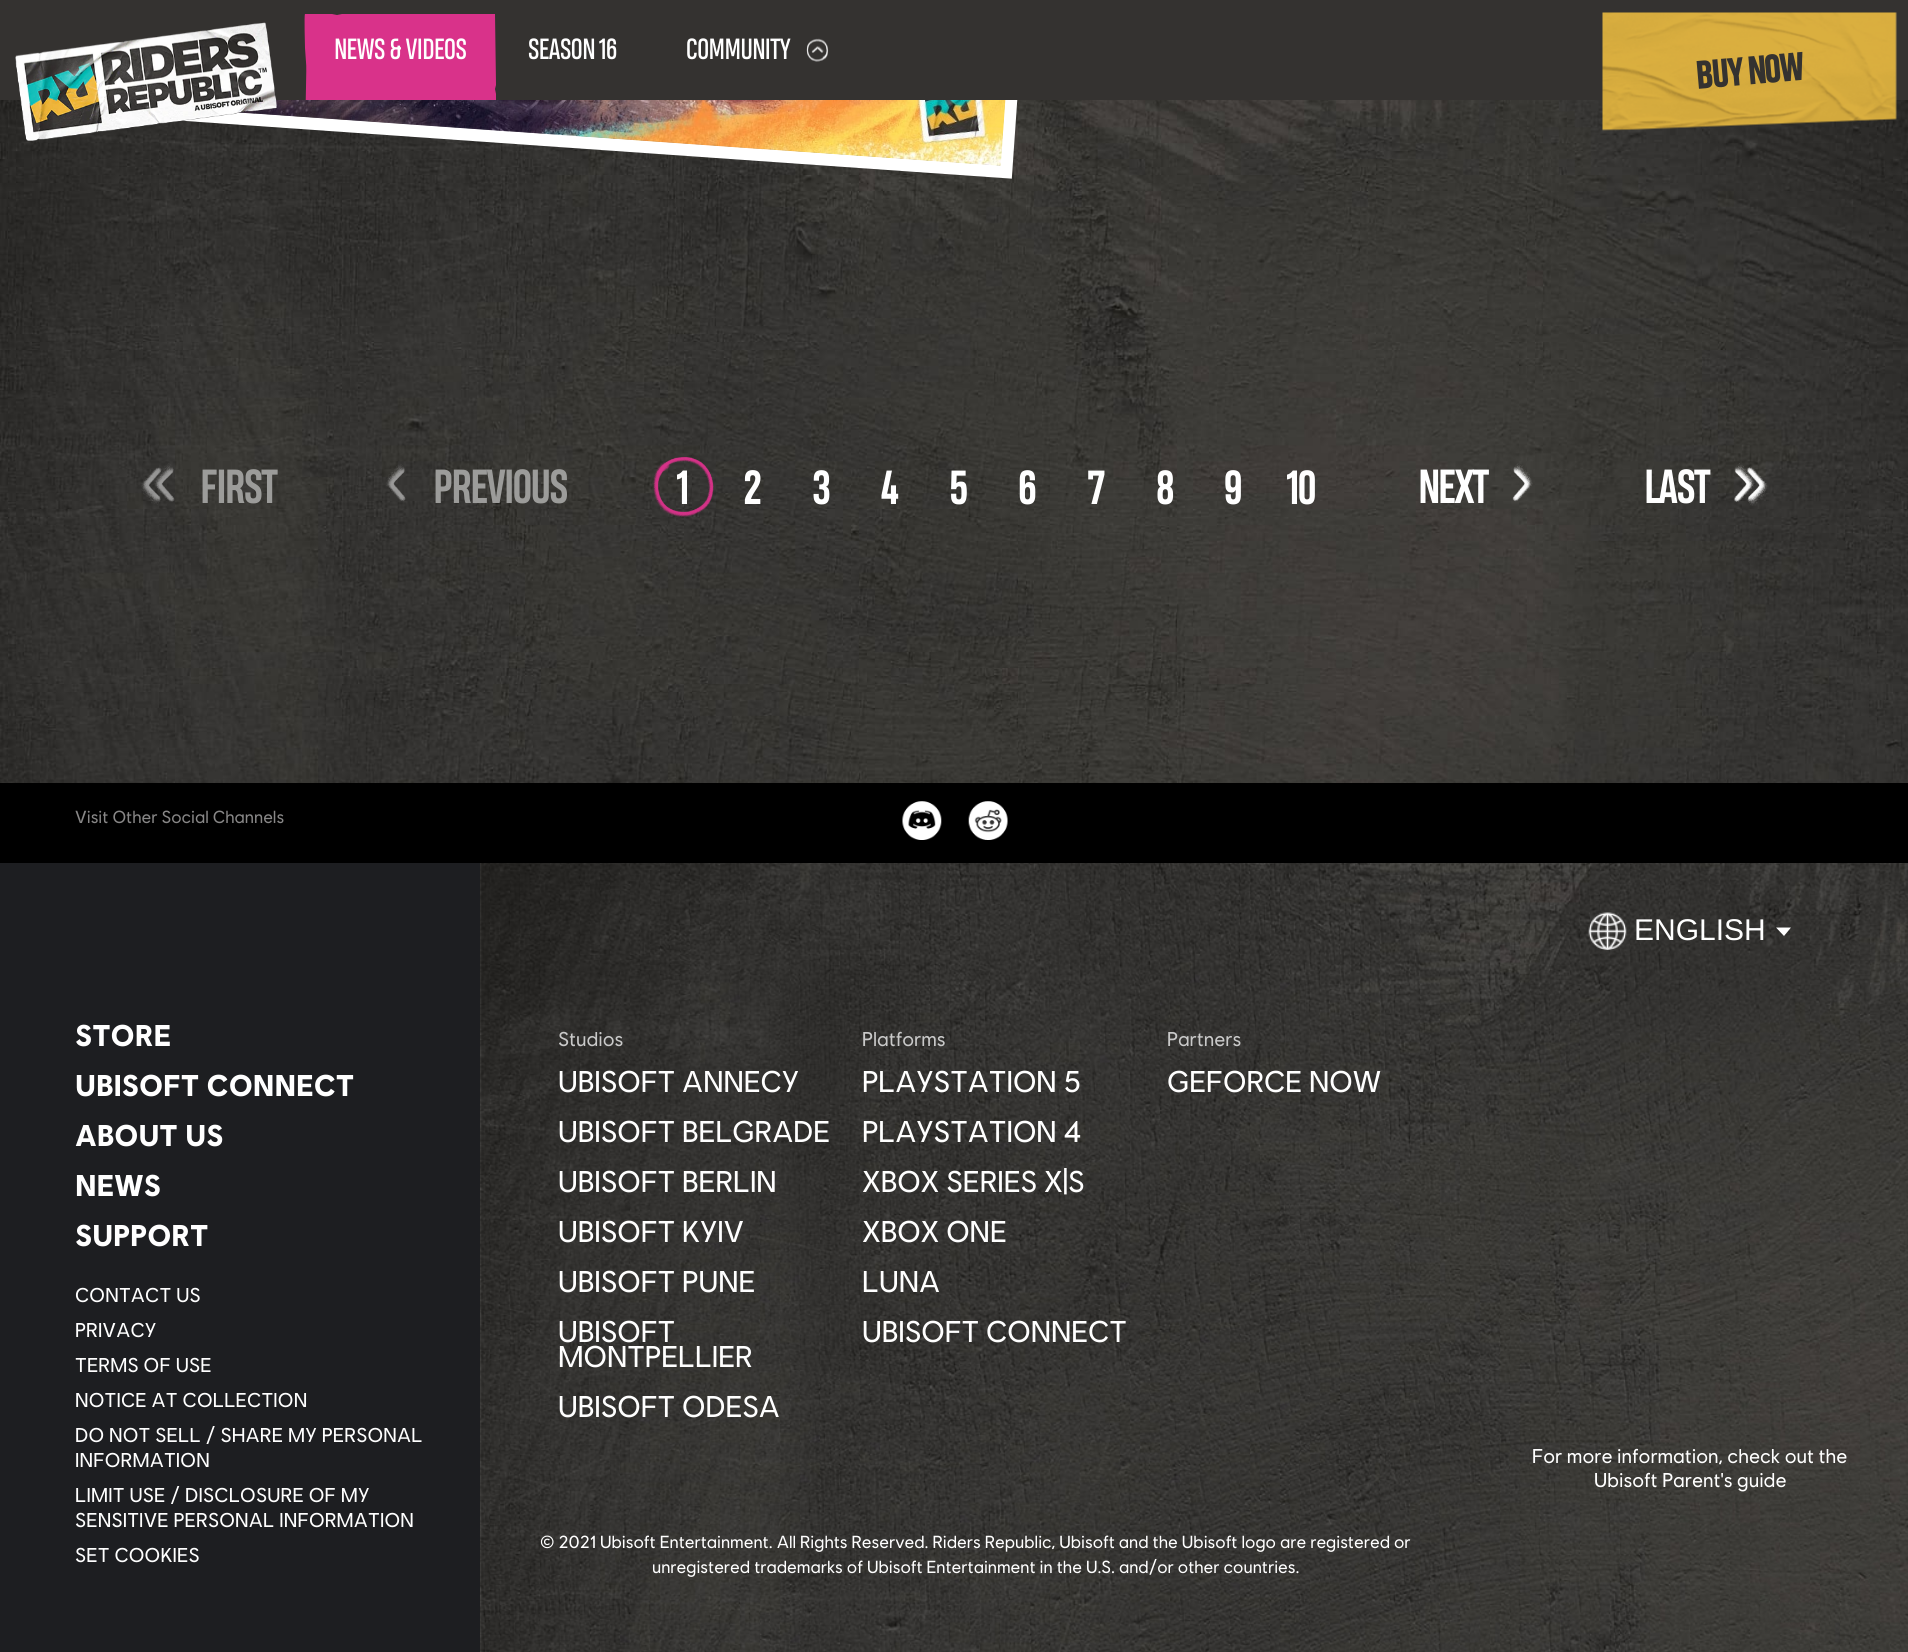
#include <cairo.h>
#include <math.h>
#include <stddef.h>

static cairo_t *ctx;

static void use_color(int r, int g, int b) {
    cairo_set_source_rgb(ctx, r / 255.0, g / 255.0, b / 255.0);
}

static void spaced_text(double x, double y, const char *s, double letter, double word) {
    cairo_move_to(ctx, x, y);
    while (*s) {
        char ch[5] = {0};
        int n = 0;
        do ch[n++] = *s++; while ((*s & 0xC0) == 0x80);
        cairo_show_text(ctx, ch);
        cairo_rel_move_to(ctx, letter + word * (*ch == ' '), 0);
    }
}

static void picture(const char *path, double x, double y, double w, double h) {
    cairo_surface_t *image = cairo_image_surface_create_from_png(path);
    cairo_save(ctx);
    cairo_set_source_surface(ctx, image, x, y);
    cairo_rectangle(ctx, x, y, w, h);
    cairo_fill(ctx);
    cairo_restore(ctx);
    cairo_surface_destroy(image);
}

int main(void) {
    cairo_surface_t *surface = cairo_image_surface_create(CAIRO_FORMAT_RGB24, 1908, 1652);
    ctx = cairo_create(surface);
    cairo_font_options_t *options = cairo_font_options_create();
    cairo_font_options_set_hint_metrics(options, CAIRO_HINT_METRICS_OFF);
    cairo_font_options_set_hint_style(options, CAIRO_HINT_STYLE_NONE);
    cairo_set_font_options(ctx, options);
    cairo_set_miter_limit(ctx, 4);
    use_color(255, 255, 255);
    cairo_paint(ctx);
    picture("img4.png", 0, 100, 1908, 683);
    cairo_new_path(ctx);
    cairo_move_to(ctx, 166.5, -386);
    cairo_line_to(ctx, 1040.5, -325);
    cairo_line_to(ctx, 1006, 172);
    cairo_line_to(ctx, 132, 111);
    cairo_close_path(ctx);
    use_color(255, 255, 255);
    cairo_set_line_width(ctx, 12.5);
    cairo_stroke(ctx);
    use_color(52, 50, 48);
    cairo_rectangle(ctx, 0, 0, 1908, 100);
    cairo_fill(ctx);
    picture("img5.png", 234, 100, 772, 66);
    picture("img1.png", 15, 22, 262, 119);
    cairo_save(ctx);
    cairo_rectangle(ctx, 303, 13, 193, 87);
    cairo_clip(ctx);
    use_color(217, 50, 138);
    cairo_new_path(ctx);
    cairo_move_to(ctx, 481, 110);
    cairo_line_to(ctx, 496, 110);
    cairo_curve_to(ctx, 497, 106, 497, 98, 496, 94);
    cairo_line_to(ctx, 495, 89);
    cairo_line_to(ctx, 496, 85);
    cairo_line_to(ctx, 495, 14);
    cairo_line_to(ctx, 446, 14);
    cairo_line_to(ctx, 439, 14);
    cairo_curve_to(ctx, 422, 14, 405, 14, 388, 14);
    cairo_line_to(ctx, 342, 14);
    cairo_line_to(ctx, 337, 15);
    cairo_line_to(ctx, 332, 14);
    cairo_line_to(ctx, 305, 14);
    cairo_curve_to(ctx, 304, 15, 305, 46, 305, 48);
    cairo_line_to(ctx, 306, 62);
    cairo_curve_to(ctx, 307, 68, 305, 107, 306, 108);
    cairo_curve_to(ctx, 307, 110, 315, 110, 317, 110);
    cairo_curve_to(ctx, 343, 109, 370, 110, 396, 109);
    cairo_line_to(ctx, 401, 110);
    cairo_line_to(ctx, 466, 110);
    cairo_line_to(ctx, 472, 109);
    cairo_close_path(ctx);
    cairo_fill(ctx);
    cairo_restore(ctx);
    cairo_select_font_face(ctx, "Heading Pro", CAIRO_FONT_SLANT_NORMAL, CAIRO_FONT_WEIGHT_NORMAL);
    cairo_set_font_size(ctx, 27.5);
    use_color(255, 255, 255);
    spaced_text(334, 59, "NEWS & VIDEOS", -0.5, 0);
    spaced_text(528, 59, "SEASON 16", -0.5, 0);
    spaced_text(686, 59, "COMMUNITY", -0.5, 0);
    picture("img2.png", 806, 38, 23, 24);
    picture("img3.png", 1602, 12, 295, 119);
    cairo_select_font_face(ctx, "Heading Pro ExtraBold", CAIRO_FONT_SLANT_NORMAL, CAIRO_FONT_WEIGHT_NORMAL);
    cairo_set_font_size(ctx, 37.5);
    use_color(52, 50, 48);
    cairo_save(ctx);
    cairo_translate(ctx, 1697, 89);
    cairo_rotate(ctx, -5 * M_PI / 180);
    spaced_text(0, 0, "BUY NOW", -1.5, 0);
    cairo_restore(ctx);
    picture("img6.png", 141, 463, 34, 42);
    cairo_select_font_face(ctx, "Heading Pro", CAIRO_FONT_SLANT_NORMAL, CAIRO_FONT_WEIGHT_BOLD);
    cairo_set_font_size(ctx, 45);
    use_color(156, 156, 154);
    spaced_text(200, 503, "FIRST", -1.75, 0);
    picture("img7.png", 386, 464, 20, 37);
    spaced_text(433, 503, "PREVIOUS", -1.75, 0);
    picture("img8.png", 652, 456, 62, 62);
    use_color(255, 255, 255);
    spaced_text(677, 504, "1", -1.75, 0);
    spaced_text(743, 504, "2", -1.75, 0);
    spaced_text(812, 504, "3", -1.75, 0);
    spaced_text(880, 504, "4", -1.75, 0);
    spaced_text(949, 504, "5", -1.75, 0);
    spaced_text(1018, 504, "6", -1.75, 0);
    spaced_text(1087, 504, "7", -1.75, 0);
    spaced_text(1156, 504, "8", -1.75, 0);
    spaced_text(1224, 504, "9", -1.75, 0);
    spaced_text(1287, 504, "10", -1.75, 0);
    spaced_text(1418, 503, "NEXT", -1.75, 0);
    picture("img9.png", 1512, 463, 21, 39);
    spaced_text(1644, 503, "LAST", -1.75, 0);
    picture("img10.png", 1733, 463, 35, 43);
    use_color(0, 0, 0);
    cairo_rectangle(ctx, 0, 783, 1908, 80);
    cairo_fill(ctx);
    cairo_select_font_face(ctx, "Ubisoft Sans", CAIRO_FONT_SLANT_NORMAL, CAIRO_FONT_WEIGHT_NORMAL);
    cairo_set_font_size(ctx, 17.5);
    use_color(136, 135, 135);
    cairo_move_to(ctx, 75, 823);
    cairo_show_text(ctx, "Visit Other Social Channels");
    picture("img11.png", 902, 801, 40, 39);
    picture("img12.png", 968, 801, 40, 39);
    picture("img14.png", 480, 863, 1428, 789);
    picture("img13.png", 1588, 912, 39, 38);
    cairo_select_font_face(ctx, "Liberation Sans", CAIRO_FONT_SLANT_NORMAL, CAIRO_FONT_WEIGHT_NORMAL);
    cairo_set_font_size(ctx, 30);
    use_color(255, 255, 255);
    cairo_move_to(ctx, 1634, 940);
    cairo_show_text(ctx, "ENGLISH");
    cairo_new_path(ctx);
    cairo_move_to(ctx, 1776, 927.5);
    cairo_line_to(ctx, 1791, 927.5);
    cairo_line_to(ctx, 1784, 936);
    cairo_close_path(ctx);
    cairo_fill(ctx);
    use_color(29, 30, 33);
    cairo_rectangle(ctx, 0, 863, 480, 789);
    cairo_fill(ctx);
    cairo_select_font_face(ctx, "Ubisoft Sans", CAIRO_FONT_SLANT_NORMAL, CAIRO_FONT_WEIGHT_BOLD);
    use_color(255, 255, 255);
    cairo_move_to(ctx, 75, 1046);
    cairo_show_text(ctx, "STORE");
    cairo_move_to(ctx, 75, 1096);
    cairo_show_text(ctx, "UBISOFT CONNECT");
    cairo_move_to(ctx, 75, 1146);
    cairo_show_text(ctx, "ABOUT US");
    cairo_move_to(ctx, 75, 1196);
    cairo_show_text(ctx, "NEWS");
    cairo_move_to(ctx, 75, 1246);
    cairo_show_text(ctx, "SUPPORT");
    cairo_select_font_face(ctx, "Ubisoft Sans", CAIRO_FONT_SLANT_NORMAL, CAIRO_FONT_WEIGHT_NORMAL);
    cairo_set_font_size(ctx, 20);
    spaced_text(75, 1302, "CONTACT US", 0.2, 0);
    spaced_text(75, 1337, "PRIVACY", 0.2, 0);
    spaced_text(75, 1372, "TERMS OF USE", 0.2, 0);
    spaced_text(75, 1407, "NOTICE AT COLLECTION", 0.2, 0);
    spaced_text(75, 1442, "DO NOT SELL / SHARE MY PERSONAL", 0.2, 0);
    spaced_text(75, 1467, "INFORMATION", 0.2, 0);
    spaced_text(75, 1502, "LIMIT USE / DISCLOSURE OF MY", 0.2, 0);
    spaced_text(75, 1527, "SENSITIVE PERSONAL INFORMATION", 0.2, 0);
    spaced_text(75, 1562, "SET COOKIES", 0.2, 0);
    use_color(201, 201, 201);
    cairo_move_to(ctx, 558, 1046);
    cairo_show_text(ctx, "Studios");
    cairo_set_font_size(ctx, 30);
    use_color(255, 255, 255);
    cairo_move_to(ctx, 558, 1092);
    cairo_show_text(ctx, "UBISOFT ANNECY");
    cairo_move_to(ctx, 558, 1142);
    cairo_show_text(ctx, "UBISOFT BELGRADE");
    cairo_move_to(ctx, 558, 1192);
    cairo_show_text(ctx, "UBISOFT BERLIN");
    cairo_move_to(ctx, 558, 1242);
    cairo_show_text(ctx, "UBISOFT KYIV");
    cairo_move_to(ctx, 558, 1292);
    cairo_show_text(ctx, "UBISOFT PUNE");
    cairo_move_to(ctx, 558, 1342);
    cairo_show_text(ctx, "UBISOFT");
    cairo_move_to(ctx, 558, 1367);
    cairo_show_text(ctx, "MONTPELLIER");
    cairo_move_to(ctx, 558, 1417);
    cairo_show_text(ctx, "UBISOFT ODESA");
    cairo_set_font_size(ctx, 20);
    use_color(201, 201, 201);
    cairo_move_to(ctx, 862, 1046);
    cairo_show_text(ctx, "Platforms");
    cairo_set_font_size(ctx, 30);
    use_color(255, 255, 255);
    cairo_move_to(ctx, 862, 1092);
    cairo_show_text(ctx, "PLAYSTATION 5");
    cairo_move_to(ctx, 862, 1142);
    cairo_show_text(ctx, "PLAYSTATION 4");
    cairo_move_to(ctx, 862, 1192);
    cairo_show_text(ctx, "XBOX SERIES X|S");
    cairo_move_to(ctx, 862, 1242);
    cairo_show_text(ctx, "XBOX ONE");
    cairo_move_to(ctx, 862, 1292);
    cairo_show_text(ctx, "LUNA");
    cairo_move_to(ctx, 862, 1342);
    cairo_show_text(ctx, "UBISOFT CONNECT");
    cairo_set_font_size(ctx, 20);
    use_color(201, 201, 201);
    cairo_move_to(ctx, 1167, 1046);
    cairo_show_text(ctx, "Partners");
    cairo_set_font_size(ctx, 30);
    use_color(255, 255, 255);
    cairo_move_to(ctx, 1167, 1092);
    cairo_show_text(ctx, "GEFORCE NOW");
    cairo_set_font_size(ctx, 20);
    cairo_move_to(ctx, 1532, 1463);
    cairo_show_text(ctx, "For more information, check out the");
    cairo_move_to(ctx, 1594, 1487);
    cairo_show_text(ctx, "Ubisoft Parent's guide");
    cairo_set_font_size(ctx, 17.5);
    cairo_move_to(ctx, 540, 1548);
    cairo_show_text(ctx, "© 2021 Ubisoft Entertainment. All Rights Reserved. Riders Republic, Ubisoft and the Ubisoft logo are registered or");
    cairo_move_to(ctx, 652, 1573);
    cairo_show_text(ctx, "unregistered trademarks of Ubisoft Entertainment in the U.S. and/or other countries.");
    cairo_surface_write_to_png(surface, "result.png");
    cairo_font_options_destroy(options);
    cairo_destroy(ctx);
    cairo_surface_destroy(surface);
    return 0;
}
